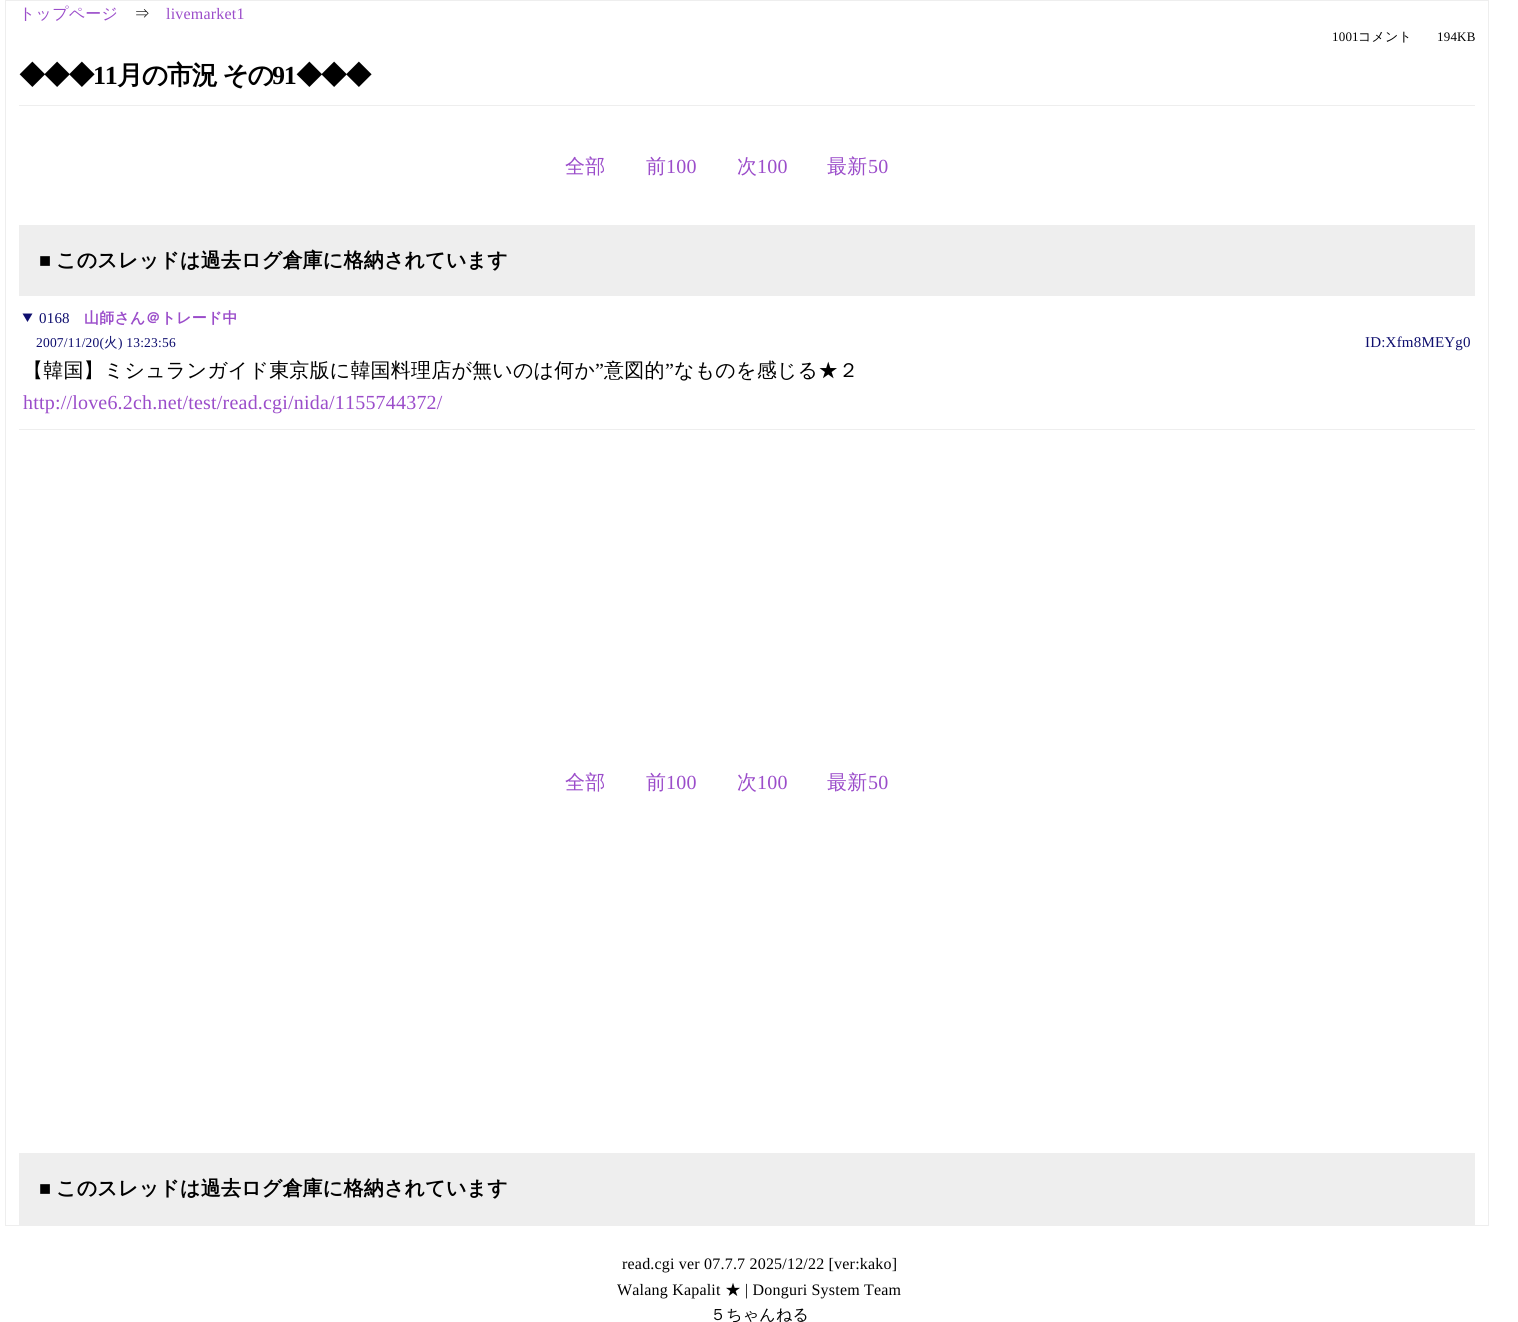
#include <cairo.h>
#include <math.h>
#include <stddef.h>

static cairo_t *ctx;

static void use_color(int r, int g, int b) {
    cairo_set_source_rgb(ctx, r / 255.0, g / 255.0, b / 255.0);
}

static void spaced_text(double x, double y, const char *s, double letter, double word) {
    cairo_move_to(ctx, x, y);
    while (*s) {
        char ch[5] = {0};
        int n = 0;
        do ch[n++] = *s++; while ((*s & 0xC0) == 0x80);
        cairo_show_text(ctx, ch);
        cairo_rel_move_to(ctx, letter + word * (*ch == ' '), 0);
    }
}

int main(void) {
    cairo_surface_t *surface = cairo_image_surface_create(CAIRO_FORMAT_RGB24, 1518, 1322);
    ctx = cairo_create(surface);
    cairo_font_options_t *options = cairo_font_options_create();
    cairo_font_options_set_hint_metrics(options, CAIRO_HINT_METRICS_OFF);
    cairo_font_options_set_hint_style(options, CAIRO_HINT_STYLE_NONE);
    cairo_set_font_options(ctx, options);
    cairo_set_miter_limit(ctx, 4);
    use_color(255, 255, 255);
    cairo_paint(ctx);
    cairo_rectangle(ctx, 5.5, 0.5, 1483, 1225);
    use_color(238, 238, 238);
    cairo_set_line_width(ctx, 1);
    cairo_stroke(ctx);
    cairo_select_font_face(ctx, "WenQuanYi Zen Hei Medium", CAIRO_FONT_SLANT_NORMAL, CAIRO_FONT_WEIGHT_NORMAL);
    cairo_set_font_size(ctx, 16);
    use_color(155, 77, 202);
    spaced_text(19, 19, "トップページ", 0.2, 0);
    use_color(0, 0, 0);
    spaced_text(134, 19, "⇒", 0.2, 0);
    cairo_select_font_face(ctx, "Liberation Serif", CAIRO_FONT_SLANT_NORMAL, CAIRO_FONT_WEIGHT_NORMAL);
    use_color(155, 77, 202);
    spaced_text(166, 19, "livemarket1", 0.2, 0);
    cairo_set_font_size(ctx, 13);
    use_color(0, 0, 0);
    spaced_text(1332, 41, "1001", 0.2, 0);
    cairo_select_font_face(ctx, "WenQuanYi Zen Hei Medium", CAIRO_FONT_SLANT_NORMAL, CAIRO_FONT_WEIGHT_NORMAL);
    spaced_text(1358, 41, "コメント", 0.2, 0);
    cairo_select_font_face(ctx, "Liberation Serif", CAIRO_FONT_SLANT_NORMAL, CAIRO_FONT_WEIGHT_NORMAL);
    spaced_text(1437, 41, "194KB", 0.2, 0);
    use_color(238, 238, 238);
    cairo_rectangle(ctx, 19, 105, 1456, 1);
    cairo_fill(ctx);
    cairo_select_font_face(ctx, "WenQuanYi Zen Hei", CAIRO_FONT_SLANT_NORMAL, CAIRO_FONT_WEIGHT_BOLD);
    cairo_set_font_size(ctx, 26);
    use_color(0, 0, 0);
    spaced_text(19, 84, "◆◆◆", -1.25, 0);
    cairo_select_font_face(ctx, "Liberation Serif", CAIRO_FONT_SLANT_NORMAL, CAIRO_FONT_WEIGHT_BOLD);
    spaced_text(93, 84, "11", -1.25, 0);
    cairo_select_font_face(ctx, "WenQuanYi Zen Hei", CAIRO_FONT_SLANT_NORMAL, CAIRO_FONT_WEIGHT_BOLD);
    spaced_text(117, 84, "月の市況 その", -1.25, -1);
    cairo_select_font_face(ctx, "Liberation Serif", CAIRO_FONT_SLANT_NORMAL, CAIRO_FONT_WEIGHT_BOLD);
    spaced_text(272, 84, "91", -1.25, 0);
    cairo_select_font_face(ctx, "WenQuanYi Zen Hei", CAIRO_FONT_SLANT_NORMAL, CAIRO_FONT_WEIGHT_BOLD);
    spaced_text(296, 84, "◆◆◆", -1.25, 0);
    cairo_select_font_face(ctx, "WenQuanYi Zen Hei Medium", CAIRO_FONT_SLANT_NORMAL, CAIRO_FONT_WEIGHT_NORMAL);
    cairo_set_font_size(ctx, 20);
    use_color(155, 77, 202);
    spaced_text(565, 173, "全部", 0.2, 0);
    spaced_text(646, 173, "前", 0.2, 0);
    cairo_select_font_face(ctx, "Liberation Serif", CAIRO_FONT_SLANT_NORMAL, CAIRO_FONT_WEIGHT_NORMAL);
    spaced_text(666, 173, "100", 0.2, 0);
    cairo_select_font_face(ctx, "WenQuanYi Zen Hei Medium", CAIRO_FONT_SLANT_NORMAL, CAIRO_FONT_WEIGHT_NORMAL);
    spaced_text(737, 173, "次", 0.2, 0);
    cairo_select_font_face(ctx, "Liberation Serif", CAIRO_FONT_SLANT_NORMAL, CAIRO_FONT_WEIGHT_NORMAL);
    spaced_text(757, 173, "100", 0.2, 0);
    cairo_select_font_face(ctx, "WenQuanYi Zen Hei Medium", CAIRO_FONT_SLANT_NORMAL, CAIRO_FONT_WEIGHT_NORMAL);
    spaced_text(827, 173, "最新", 0.2, 0);
    cairo_select_font_face(ctx, "Liberation Serif", CAIRO_FONT_SLANT_NORMAL, CAIRO_FONT_WEIGHT_NORMAL);
    spaced_text(868, 173, "50", 0.2, 0);
    use_color(238, 238, 238);
    cairo_rectangle(ctx, 19, 225, 1456, 71);
    cairo_fill(ctx);
    cairo_select_font_face(ctx, "Liberation Serif", CAIRO_FONT_SLANT_NORMAL, CAIRO_FONT_WEIGHT_BOLD);
    use_color(0, 0, 0);
    spaced_text(39, 267, "■", 0.2, 0);
    cairo_select_font_face(ctx, "WenQuanYi Zen Hei", CAIRO_FONT_SLANT_NORMAL, CAIRO_FONT_WEIGHT_BOLD);
    spaced_text(56, 267, "このスレッドは過去ログ倉庫に格納されています", 0.2, 0);
    use_color(238, 238, 238);
    cairo_rectangle(ctx, 19, 429, 1456, 1);
    cairo_fill(ctx);
    use_color(14, 14, 110);
    cairo_new_path(ctx);
    cairo_move_to(ctx, 22.5, 313.5);
    cairo_line_to(ctx, 32.5, 313.5);
    cairo_line_to(ctx, 27.5, 322);
    cairo_close_path(ctx);
    cairo_fill(ctx);
    cairo_select_font_face(ctx, "Liberation Serif", CAIRO_FONT_SLANT_NORMAL, CAIRO_FONT_WEIGHT_NORMAL);
    cairo_set_font_size(ctx, 15);
    spaced_text(39, 323, "0168", 0.2, 0);
    cairo_select_font_face(ctx, "WenQuanYi Zen Hei", CAIRO_FONT_SLANT_NORMAL, CAIRO_FONT_WEIGHT_BOLD);
    use_color(155, 77, 202);
    spaced_text(84, 323, "山師さん＠トレード中", 0.2, 0);
    cairo_select_font_face(ctx, "Liberation Serif", CAIRO_FONT_SLANT_NORMAL, CAIRO_FONT_WEIGHT_NORMAL);
    cairo_set_font_size(ctx, 13.5);
    use_color(14, 14, 110);
    spaced_text(36, 347, "2007/11/20(", 0.2, 0);
    cairo_select_font_face(ctx, "WenQuanYi Zen Hei Medium", CAIRO_FONT_SLANT_NORMAL, CAIRO_FONT_WEIGHT_NORMAL);
    spaced_text(104, 347, "火", 0.2, 0);
    cairo_select_font_face(ctx, "Liberation Serif", CAIRO_FONT_SLANT_NORMAL, CAIRO_FONT_WEIGHT_NORMAL);
    spaced_text(118, 347, ") 13:23:56", 0.2, 0);
    cairo_set_font_size(ctx, 15);
    spaced_text(1365, 347, "ID:Xfm8MEYg0", 0.2, 0);
    cairo_select_font_face(ctx, "WenQuanYi Zen Hei Medium", CAIRO_FONT_SLANT_NORMAL, CAIRO_FONT_WEIGHT_NORMAL);
    cairo_set_font_size(ctx, 20);
    use_color(0, 0, 0);
    spaced_text(23, 377, "【韓国】ミシュランガイド東京版に韓国料理店が無いのは何か", 0.2, 0);
    cairo_select_font_face(ctx, "Liberation Serif", CAIRO_FONT_SLANT_NORMAL, CAIRO_FONT_WEIGHT_NORMAL);
    spaced_text(595, 377, "”", 0.2, 0);
    cairo_select_font_face(ctx, "WenQuanYi Zen Hei Medium", CAIRO_FONT_SLANT_NORMAL, CAIRO_FONT_WEIGHT_NORMAL);
    spaced_text(604, 377, "意図的", 0.2, 0);
    cairo_select_font_face(ctx, "Liberation Serif", CAIRO_FONT_SLANT_NORMAL, CAIRO_FONT_WEIGHT_NORMAL);
    spaced_text(665, 377, "”", 0.2, 0);
    cairo_select_font_face(ctx, "WenQuanYi Zen Hei Medium", CAIRO_FONT_SLANT_NORMAL, CAIRO_FONT_WEIGHT_NORMAL);
    spaced_text(674, 377, "なものを感じる★２", 0.2, 0);
    cairo_select_font_face(ctx, "Liberation Serif", CAIRO_FONT_SLANT_NORMAL, CAIRO_FONT_WEIGHT_NORMAL);
    use_color(155, 77, 202);
    spaced_text(23, 409, "http://love6.2ch.net/test/read.cgi/nida/1155744372/", 0.2, 0);
    cairo_select_font_face(ctx, "WenQuanYi Zen Hei Medium", CAIRO_FONT_SLANT_NORMAL, CAIRO_FONT_WEIGHT_NORMAL);
    spaced_text(565, 789, "全部", 0.2, 0);
    spaced_text(646, 789, "前", 0.2, 0);
    cairo_select_font_face(ctx, "Liberation Serif", CAIRO_FONT_SLANT_NORMAL, CAIRO_FONT_WEIGHT_NORMAL);
    spaced_text(666, 789, "100", 0.2, 0);
    cairo_select_font_face(ctx, "WenQuanYi Zen Hei Medium", CAIRO_FONT_SLANT_NORMAL, CAIRO_FONT_WEIGHT_NORMAL);
    spaced_text(737, 789, "次", 0.2, 0);
    cairo_select_font_face(ctx, "Liberation Serif", CAIRO_FONT_SLANT_NORMAL, CAIRO_FONT_WEIGHT_NORMAL);
    spaced_text(757, 789, "100", 0.2, 0);
    cairo_select_font_face(ctx, "WenQuanYi Zen Hei Medium", CAIRO_FONT_SLANT_NORMAL, CAIRO_FONT_WEIGHT_NORMAL);
    spaced_text(827, 789, "最新", 0.2, 0);
    cairo_select_font_face(ctx, "Liberation Serif", CAIRO_FONT_SLANT_NORMAL, CAIRO_FONT_WEIGHT_NORMAL);
    spaced_text(868, 789, "50", 0.2, 0);
    use_color(238, 238, 238);
    cairo_rectangle(ctx, 19, 1153, 1456, 72);
    cairo_fill(ctx);
    cairo_select_font_face(ctx, "Liberation Serif", CAIRO_FONT_SLANT_NORMAL, CAIRO_FONT_WEIGHT_BOLD);
    use_color(0, 0, 0);
    spaced_text(39, 1195, "■", 0.2, 0);
    cairo_select_font_face(ctx, "WenQuanYi Zen Hei", CAIRO_FONT_SLANT_NORMAL, CAIRO_FONT_WEIGHT_BOLD);
    spaced_text(56, 1195, "このスレッドは過去ログ倉庫に格納されています", 0.2, 0);
    cairo_select_font_face(ctx, "Liberation Serif", CAIRO_FONT_SLANT_NORMAL, CAIRO_FONT_WEIGHT_NORMAL);
    cairo_set_font_size(ctx, 16);
    spaced_text(622, 1269, "read.cgi ver 07.7.7 2025/12/22 [ver:kako]", 0.2, 0);
    spaced_text(617, 1295, "Walang Kapalit", 0.2, 0);
    cairo_select_font_face(ctx, "WenQuanYi Zen Hei Medium", CAIRO_FONT_SLANT_NORMAL, CAIRO_FONT_WEIGHT_NORMAL);
    spaced_text(725, 1295, "★", 0.2, 0);
    cairo_select_font_face(ctx, "Liberation Serif", CAIRO_FONT_SLANT_NORMAL, CAIRO_FONT_WEIGHT_NORMAL);
    spaced_text(745, 1295, "| Donguri System Team", 0.2, 0);
    cairo_select_font_face(ctx, "WenQuanYi Zen Hei Medium", CAIRO_FONT_SLANT_NORMAL, CAIRO_FONT_WEIGHT_NORMAL);
    spaced_text(710, 1320, "５ちゃんねる", 0.2, 0);
    cairo_surface_write_to_png(surface, "result.png");
    cairo_font_options_destroy(options);
    cairo_destroy(ctx);
    cairo_surface_destroy(surface);
    return 0;
}
